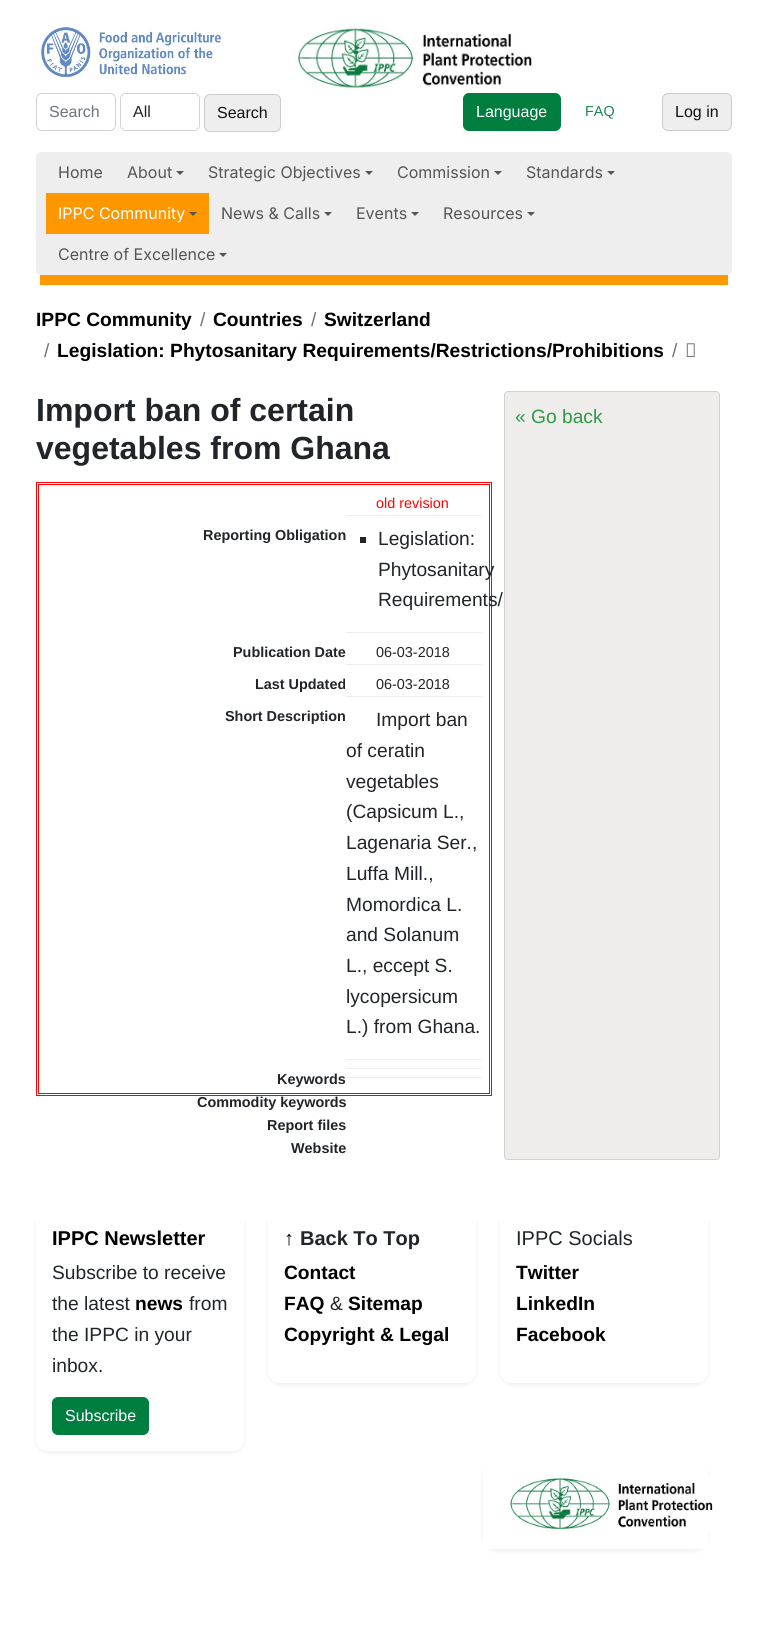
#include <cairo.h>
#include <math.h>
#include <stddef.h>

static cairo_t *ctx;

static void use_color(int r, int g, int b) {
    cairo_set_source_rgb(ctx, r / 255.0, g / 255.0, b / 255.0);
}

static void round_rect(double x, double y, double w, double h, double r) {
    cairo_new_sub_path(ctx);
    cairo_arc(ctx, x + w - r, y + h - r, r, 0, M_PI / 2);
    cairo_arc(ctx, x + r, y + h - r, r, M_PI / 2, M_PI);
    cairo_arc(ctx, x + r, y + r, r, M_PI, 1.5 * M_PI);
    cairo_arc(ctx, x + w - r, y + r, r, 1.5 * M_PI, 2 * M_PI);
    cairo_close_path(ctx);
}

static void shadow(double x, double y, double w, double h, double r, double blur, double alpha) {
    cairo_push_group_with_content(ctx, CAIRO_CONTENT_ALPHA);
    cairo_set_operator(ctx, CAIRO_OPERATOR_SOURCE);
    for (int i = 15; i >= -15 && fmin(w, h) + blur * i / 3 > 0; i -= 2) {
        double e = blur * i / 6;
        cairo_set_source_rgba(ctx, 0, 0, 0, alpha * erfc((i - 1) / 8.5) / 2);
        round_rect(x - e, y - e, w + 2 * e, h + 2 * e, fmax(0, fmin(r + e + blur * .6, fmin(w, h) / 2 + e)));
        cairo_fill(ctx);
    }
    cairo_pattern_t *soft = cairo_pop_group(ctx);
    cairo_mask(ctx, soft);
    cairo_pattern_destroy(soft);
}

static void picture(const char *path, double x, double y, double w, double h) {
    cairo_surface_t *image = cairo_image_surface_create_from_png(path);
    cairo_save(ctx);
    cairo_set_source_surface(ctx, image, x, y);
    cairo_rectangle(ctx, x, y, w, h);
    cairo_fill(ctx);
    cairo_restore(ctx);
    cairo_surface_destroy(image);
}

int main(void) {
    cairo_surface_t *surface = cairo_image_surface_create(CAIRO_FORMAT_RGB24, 768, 1649);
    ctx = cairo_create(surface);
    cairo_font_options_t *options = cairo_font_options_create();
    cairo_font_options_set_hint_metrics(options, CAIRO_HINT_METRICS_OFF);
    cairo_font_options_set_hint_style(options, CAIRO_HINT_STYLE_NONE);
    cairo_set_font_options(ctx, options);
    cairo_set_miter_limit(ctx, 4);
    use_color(255, 255, 255);
    cairo_paint(ctx);
    picture("img1.png", 41, 26, 181, 52);
    picture("img2.png", 294, 26, 239, 63);
    round_rect(36.5, 93.5, 79, 37, 5.5);
    use_color(206, 212, 218);
    cairo_set_line_width(ctx, 1);
    cairo_stroke(ctx);
    cairo_select_font_face(ctx, "Liberation Sans", CAIRO_FONT_SLANT_NORMAL, CAIRO_FONT_WEIGHT_NORMAL);
    cairo_set_font_size(ctx, 16);
    use_color(108, 117, 125);
    cairo_move_to(ctx, 49, 117);
    cairo_show_text(ctx, "Search");
    round_rect(120.5, 93.5, 79, 37, 5.5);
    use_color(206, 212, 218);
    cairo_stroke(ctx);
    use_color(33, 37, 41);
    cairo_move_to(ctx, 133, 117);
    cairo_show_text(ctx, "All");
    use_color(238, 238, 238);
    round_rect(204.5, 94.5, 76, 37, 5.5);
    cairo_fill_preserve(ctx);
    use_color(204, 204, 204);
    cairo_stroke(ctx);
    use_color(17, 17, 17);
    cairo_move_to(ctx, 217, 118);
    cairo_show_text(ctx, "Search");
    use_color(0, 126, 64);
    round_rect(463.5, 93.5, 97, 37, 5.5);
    cairo_fill_preserve(ctx);
    cairo_stroke(ctx);
    use_color(255, 255, 255);
    cairo_move_to(ctx, 476, 117);
    cairo_show_text(ctx, "Language");
    cairo_set_font_size(ctx, 14.4);
    use_color(25, 135, 84);
    cairo_move_to(ctx, 585, 116);
    cairo_show_text(ctx, "FAQ");
    use_color(238, 238, 238);
    round_rect(662.5, 93.5, 69, 37, 5.5);
    cairo_fill_preserve(ctx);
    use_color(204, 204, 204);
    cairo_stroke(ctx);
    cairo_set_font_size(ctx, 16);
    use_color(17, 17, 17);
    cairo_move_to(ctx, 675, 117);
    cairo_show_text(ctx, "Log in");
    use_color(255, 152, 0);
    cairo_rectangle(ctx, 40, 275, 688, 10);
    cairo_fill(ctx);
    use_color(238, 238, 238);
    round_rect(36, 152, 696, 123, 5);
    cairo_fill(ctx);
    cairo_select_font_face(ctx, "Inter", CAIRO_FONT_SLANT_NORMAL, CAIRO_FONT_WEIGHT_NORMAL);
    use_color(85, 85, 85);
    cairo_move_to(ctx, 58, 178);
    cairo_show_text(ctx, "Home");
    cairo_move_to(ctx, 127, 178);
    cairo_show_text(ctx, "About");
    cairo_new_path(ctx);
    cairo_move_to(ctx, 176, 171);
    cairo_line_to(ctx, 184, 171);
    cairo_line_to(ctx, 180, 175);
    cairo_close_path(ctx);
    cairo_fill(ctx);
    cairo_move_to(ctx, 208, 178);
    cairo_show_text(ctx, "Strategic Objectives");
    cairo_new_path(ctx);
    cairo_move_to(ctx, 365, 171);
    cairo_line_to(ctx, 373, 171);
    cairo_line_to(ctx, 369, 175);
    cairo_close_path(ctx);
    cairo_fill(ctx);
    cairo_move_to(ctx, 397, 178);
    cairo_show_text(ctx, "Commission");
    cairo_new_path(ctx);
    cairo_move_to(ctx, 494, 171);
    cairo_line_to(ctx, 502, 171);
    cairo_line_to(ctx, 498, 175);
    cairo_close_path(ctx);
    cairo_fill(ctx);
    cairo_move_to(ctx, 526, 178);
    cairo_show_text(ctx, "Standards");
    cairo_new_path(ctx);
    cairo_move_to(ctx, 607, 171);
    cairo_line_to(ctx, 615, 171);
    cairo_line_to(ctx, 611, 175);
    cairo_close_path(ctx);
    cairo_fill(ctx);
    use_color(255, 152, 0);
    cairo_rectangle(ctx, 46, 193, 163, 41);
    cairo_fill(ctx);
    use_color(255, 255, 255);
    cairo_move_to(ctx, 58, 219);
    cairo_show_text(ctx, "IPPC Community");
    use_color(85, 85, 85);
    cairo_new_path(ctx);
    cairo_move_to(ctx, 189, 212);
    cairo_line_to(ctx, 197, 212);
    cairo_line_to(ctx, 193, 216);
    cairo_close_path(ctx);
    cairo_fill(ctx);
    cairo_move_to(ctx, 221, 219);
    cairo_show_text(ctx, "News & Calls");
    cairo_new_path(ctx);
    cairo_move_to(ctx, 324, 212);
    cairo_line_to(ctx, 332, 212);
    cairo_line_to(ctx, 328, 216);
    cairo_close_path(ctx);
    cairo_fill(ctx);
    cairo_move_to(ctx, 356, 219);
    cairo_show_text(ctx, "Events");
    cairo_new_path(ctx);
    cairo_move_to(ctx, 411, 212);
    cairo_line_to(ctx, 419, 212);
    cairo_line_to(ctx, 415, 216);
    cairo_close_path(ctx);
    cairo_fill(ctx);
    cairo_move_to(ctx, 443, 219);
    cairo_show_text(ctx, "Resources");
    cairo_new_path(ctx);
    cairo_move_to(ctx, 527, 212);
    cairo_line_to(ctx, 535, 212);
    cairo_line_to(ctx, 531, 216);
    cairo_close_path(ctx);
    cairo_fill(ctx);
    cairo_move_to(ctx, 58, 260);
    cairo_show_text(ctx, "Centre of Excellence");
    cairo_new_path(ctx);
    cairo_move_to(ctx, 219, 253);
    cairo_line_to(ctx, 227, 253);
    cairo_line_to(ctx, 223, 257);
    cairo_close_path(ctx);
    cairo_fill(ctx);
    cairo_select_font_face(ctx, "Liberation Sans", CAIRO_FONT_SLANT_NORMAL, CAIRO_FONT_WEIGHT_BOLD);
    cairo_set_font_size(ctx, 19.2);
    use_color(0, 0, 0);
    cairo_move_to(ctx, 36, 326);
    cairo_show_text(ctx, "IPPC Community");
    cairo_select_font_face(ctx, "Liberation Sans", CAIRO_FONT_SLANT_NORMAL, CAIRO_FONT_WEIGHT_NORMAL);
    use_color(108, 117, 125);
    cairo_move_to(ctx, 200, 326);
    cairo_show_text(ctx, "/");
    cairo_select_font_face(ctx, "Liberation Sans", CAIRO_FONT_SLANT_NORMAL, CAIRO_FONT_WEIGHT_BOLD);
    use_color(0, 0, 0);
    cairo_move_to(ctx, 213, 326);
    cairo_show_text(ctx, "Countries");
    cairo_select_font_face(ctx, "Liberation Sans", CAIRO_FONT_SLANT_NORMAL, CAIRO_FONT_WEIGHT_NORMAL);
    use_color(108, 117, 125);
    cairo_move_to(ctx, 311, 326);
    cairo_show_text(ctx, "/");
    cairo_select_font_face(ctx, "Liberation Sans", CAIRO_FONT_SLANT_NORMAL, CAIRO_FONT_WEIGHT_BOLD);
    use_color(0, 0, 0);
    cairo_move_to(ctx, 324, 326);
    cairo_show_text(ctx, "Switzerland");
    cairo_select_font_face(ctx, "Liberation Sans", CAIRO_FONT_SLANT_NORMAL, CAIRO_FONT_WEIGHT_NORMAL);
    use_color(108, 117, 125);
    cairo_move_to(ctx, 44, 357);
    cairo_show_text(ctx, "/");
    cairo_select_font_face(ctx, "Liberation Sans", CAIRO_FONT_SLANT_NORMAL, CAIRO_FONT_WEIGHT_BOLD);
    use_color(0, 0, 0);
    cairo_move_to(ctx, 57, 357);
    cairo_show_text(ctx, "Legislation: Phytosanitary Requirements/Restrictions/Prohibitions");
    cairo_select_font_face(ctx, "Liberation Sans", CAIRO_FONT_SLANT_NORMAL, CAIRO_FONT_WEIGHT_NORMAL);
    use_color(108, 117, 125);
    cairo_move_to(ctx, 672, 357);
    cairo_show_text(ctx, "/");
    picture("img3.png", 686, 343, 9, 14);
    cairo_select_font_face(ctx, "Liberation Sans", CAIRO_FONT_SLANT_NORMAL, CAIRO_FONT_WEIGHT_BOLD);
    cairo_set_font_size(ctx, 32);
    use_color(33, 37, 41);
    cairo_move_to(ctx, 36, 421);
    cairo_show_text(ctx, "Import ban of certain");
    cairo_move_to(ctx, 36, 459);
    cairo_show_text(ctx, "vegetables from Ghana");
    cairo_rectangle(ctx, 36.5, 482.5, 455, 613);
    use_color(255, 0, 0);
    cairo_stroke(ctx);
    cairo_rectangle(ctx, 38.5, 484.5, 451, 609);
    cairo_stroke(ctx);
    use_color(238, 238, 238);
    cairo_rectangle(ctx, 346, 515, 136, 1);
    cairo_fill(ctx);
    cairo_select_font_face(ctx, "Liberation Sans", CAIRO_FONT_SLANT_NORMAL, CAIRO_FONT_WEIGHT_NORMAL);
    cairo_set_font_size(ctx, 14.4);
    use_color(255, 0, 0);
    cairo_move_to(ctx, 376, 508);
    cairo_show_text(ctx, "old revision");
    cairo_select_font_face(ctx, "Liberation Sans", CAIRO_FONT_SLANT_NORMAL, CAIRO_FONT_WEIGHT_BOLD);
    use_color(33, 37, 41);
    cairo_move_to(ctx, 203, 540);
    cairo_show_text(ctx, "Reporting Obligation");
    use_color(238, 238, 238);
    cairo_rectangle(ctx, 346, 632, 136, 1);
    cairo_fill(ctx);
    use_color(33, 37, 41);
    cairo_rectangle(ctx, 360, 537, 6, 6);
    cairo_fill(ctx);
    cairo_select_font_face(ctx, "Liberation Sans", CAIRO_FONT_SLANT_NORMAL, CAIRO_FONT_WEIGHT_NORMAL);
    cairo_set_font_size(ctx, 19.2);
    cairo_move_to(ctx, 378, 545);
    cairo_show_text(ctx, "Legislation:");
    cairo_move_to(ctx, 378, 576);
    cairo_show_text(ctx, "Phytosanitary");
    cairo_move_to(ctx, 378, 606);
    cairo_show_text(ctx, "Requirements/");
    cairo_select_font_face(ctx, "Liberation Sans", CAIRO_FONT_SLANT_NORMAL, CAIRO_FONT_WEIGHT_BOLD);
    cairo_set_font_size(ctx, 14.4);
    cairo_move_to(ctx, 233, 657);
    cairo_show_text(ctx, "Publication Date");
    use_color(238, 238, 238);
    cairo_rectangle(ctx, 346, 664, 136, 1);
    cairo_fill(ctx);
    cairo_select_font_face(ctx, "Liberation Sans", CAIRO_FONT_SLANT_NORMAL, CAIRO_FONT_WEIGHT_NORMAL);
    use_color(33, 37, 41);
    cairo_move_to(ctx, 376, 657);
    cairo_show_text(ctx, "06-03-2018");
    cairo_select_font_face(ctx, "Liberation Sans", CAIRO_FONT_SLANT_NORMAL, CAIRO_FONT_WEIGHT_BOLD);
    cairo_move_to(ctx, 255, 689);
    cairo_show_text(ctx, "Last Updated");
    use_color(238, 238, 238);
    cairo_rectangle(ctx, 346, 696, 136, 1);
    cairo_fill(ctx);
    cairo_select_font_face(ctx, "Liberation Sans", CAIRO_FONT_SLANT_NORMAL, CAIRO_FONT_WEIGHT_NORMAL);
    use_color(33, 37, 41);
    cairo_move_to(ctx, 376, 689);
    cairo_show_text(ctx, "06-03-2018");
    cairo_select_font_face(ctx, "Liberation Sans", CAIRO_FONT_SLANT_NORMAL, CAIRO_FONT_WEIGHT_BOLD);
    cairo_move_to(ctx, 225, 721);
    cairo_show_text(ctx, "Short Description");
    use_color(238, 238, 238);
    cairo_rectangle(ctx, 346, 1059, 136, 1);
    cairo_fill(ctx);
    cairo_select_font_face(ctx, "Liberation Sans", CAIRO_FONT_SLANT_NORMAL, CAIRO_FONT_WEIGHT_NORMAL);
    cairo_set_font_size(ctx, 19.2);
    use_color(33, 37, 41);
    cairo_move_to(ctx, 376, 726);
    cairo_show_text(ctx, "Import ban");
    cairo_move_to(ctx, 346, 757);
    cairo_show_text(ctx, "of ceratin");
    cairo_move_to(ctx, 346, 788);
    cairo_show_text(ctx, "vegetables");
    cairo_move_to(ctx, 346, 818);
    cairo_show_text(ctx, "(Capsicum L.,");
    cairo_move_to(ctx, 346, 849);
    cairo_show_text(ctx, "Lagenaria Ser.,");
    cairo_move_to(ctx, 346, 880);
    cairo_show_text(ctx, "Luffa Mill.,");
    cairo_move_to(ctx, 346, 911);
    cairo_show_text(ctx, "Momordica L.");
    cairo_move_to(ctx, 346, 941);
    cairo_show_text(ctx, "and Solanum");
    cairo_move_to(ctx, 346, 972);
    cairo_show_text(ctx, "L., eccept S.");
    cairo_move_to(ctx, 346, 1003);
    cairo_show_text(ctx, "lycopersicum");
    cairo_move_to(ctx, 346, 1033);
    cairo_show_text(ctx, "L.) from Ghana.");
    use_color(238, 238, 238);
    cairo_rectangle(ctx, 346, 1068, 136, 1);
    cairo_fill(ctx);
    cairo_select_font_face(ctx, "Liberation Sans", CAIRO_FONT_SLANT_NORMAL, CAIRO_FONT_WEIGHT_BOLD);
    cairo_set_font_size(ctx, 14.4);
    use_color(33, 37, 41);
    cairo_move_to(ctx, 277, 1084);
    cairo_show_text(ctx, "Keywords");
    use_color(238, 238, 238);
    cairo_rectangle(ctx, 346, 1077, 136, 1);
    cairo_fill(ctx);
    use_color(33, 37, 41);
    cairo_move_to(ctx, 197, 1107);
    cairo_show_text(ctx, "Commodity keywords");
    cairo_move_to(ctx, 267, 1130);
    cairo_show_text(ctx, "Report files");
    cairo_move_to(ctx, 291, 1153);
    cairo_show_text(ctx, "Website");
    use_color(239, 236, 236);
    round_rect(504, 391, 216, 769, 4);
    cairo_fill(ctx);
    round_rect(504.5, 391.5, 215, 768, 3.5);
    cairo_set_source_rgba(ctx, 0, 0, 0, 0.12);
    cairo_stroke(ctx);
    cairo_select_font_face(ctx, "Liberation Sans", CAIRO_FONT_SLANT_NORMAL, CAIRO_FONT_WEIGHT_NORMAL);
    cairo_set_font_size(ctx, 19.2);
    use_color(45, 154, 71);
    cairo_move_to(ctx, 515, 423);
    cairo_show_text(ctx, "« Go back");
    cairo_save(ctx);
    cairo_set_fill_rule(ctx, CAIRO_FILL_RULE_EVEN_ODD);
    cairo_new_path(ctx);
    cairo_move_to(ctx, 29, 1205);
    cairo_line_to(ctx, 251, 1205);
    cairo_line_to(ctx, 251, 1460);
    cairo_line_to(ctx, 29, 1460);
    cairo_close_path(ctx);
    cairo_move_to(ctx, 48, 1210);
    cairo_line_to(ctx, 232, 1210);
    cairo_curve_to(ctx, 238.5, 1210, 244, 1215.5, 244, 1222);
    cairo_line_to(ctx, 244, 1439);
    cairo_curve_to(ctx, 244, 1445.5, 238.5, 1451, 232, 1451);
    cairo_line_to(ctx, 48, 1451);
    cairo_curve_to(ctx, 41.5, 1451, 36, 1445.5, 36, 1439);
    cairo_line_to(ctx, 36, 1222);
    cairo_curve_to(ctx, 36, 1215.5, 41.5, 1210, 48, 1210);
    cairo_close_path(ctx);
    cairo_clip(ctx);
    use_color(0, 0, 0);
    shadow(36, 1212, 208, 241, 12, 2, 0.07);
    cairo_restore(ctx);
    cairo_set_source_rgba(ctx, 1, 1, 1, 0.75);
    round_rect(36, 1210, 208, 241, 12);
    cairo_fill(ctx);
    cairo_select_font_face(ctx, "Liberation Sans", CAIRO_FONT_SLANT_NORMAL, CAIRO_FONT_WEIGHT_BOLD);
    cairo_set_font_size(ctx, 20);
    use_color(0, 0, 0);
    cairo_move_to(ctx, 52, 1245);
    cairo_show_text(ctx, "IPPC Newsletter");
    cairo_select_font_face(ctx, "Liberation Sans", CAIRO_FONT_SLANT_NORMAL, CAIRO_FONT_WEIGHT_NORMAL);
    cairo_set_font_size(ctx, 19.2);
    use_color(33, 37, 41);
    cairo_move_to(ctx, 52, 1279);
    cairo_show_text(ctx, "Subscribe to receive");
    cairo_move_to(ctx, 52, 1310);
    cairo_show_text(ctx, "the latest");
    cairo_select_font_face(ctx, "Liberation Sans", CAIRO_FONT_SLANT_NORMAL, CAIRO_FONT_WEIGHT_BOLD);
    use_color(0, 0, 0);
    cairo_move_to(ctx, 135, 1310);
    cairo_show_text(ctx, "news");
    cairo_select_font_face(ctx, "Liberation Sans", CAIRO_FONT_SLANT_NORMAL, CAIRO_FONT_WEIGHT_NORMAL);
    use_color(33, 37, 41);
    cairo_move_to(ctx, 189, 1310);
    cairo_show_text(ctx, "from");
    cairo_move_to(ctx, 52, 1341);
    cairo_show_text(ctx, "the IPPC in your");
    cairo_move_to(ctx, 52, 1372);
    cairo_show_text(ctx, "inbox.");
    use_color(0, 126, 64);
    round_rect(52.5, 1397.5, 96, 37, 5.5);
    cairo_fill_preserve(ctx);
    cairo_stroke(ctx);
    cairo_set_font_size(ctx, 16);
    use_color(255, 255, 255);
    cairo_move_to(ctx, 65, 1421);
    cairo_show_text(ctx, "Subscribe");
    cairo_save(ctx);
    cairo_set_fill_rule(ctx, CAIRO_FILL_RULE_EVEN_ODD);
    cairo_new_path(ctx);
    cairo_move_to(ctx, 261, 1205);
    cairo_line_to(ctx, 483, 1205);
    cairo_line_to(ctx, 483, 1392);
    cairo_line_to(ctx, 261, 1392);
    cairo_close_path(ctx);
    cairo_move_to(ctx, 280, 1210);
    cairo_line_to(ctx, 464, 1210);
    cairo_curve_to(ctx, 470.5, 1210, 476, 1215.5, 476, 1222);
    cairo_line_to(ctx, 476, 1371);
    cairo_curve_to(ctx, 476, 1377.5, 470.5, 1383, 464, 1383);
    cairo_line_to(ctx, 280, 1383);
    cairo_curve_to(ctx, 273.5, 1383, 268, 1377.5, 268, 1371);
    cairo_line_to(ctx, 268, 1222);
    cairo_curve_to(ctx, 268, 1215.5, 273.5, 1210, 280, 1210);
    cairo_close_path(ctx);
    cairo_clip(ctx);
    use_color(0, 0, 0);
    shadow(268, 1212, 208, 173, 12, 2, 0.07);
    cairo_restore(ctx);
    cairo_set_source_rgba(ctx, 1, 1, 1, 0.75);
    round_rect(268, 1210, 208, 173, 12);
    cairo_fill(ctx);
    cairo_select_font_face(ctx, "Liberation Sans", CAIRO_FONT_SLANT_NORMAL, CAIRO_FONT_WEIGHT_BOLD);
    cairo_set_font_size(ctx, 20);
    use_color(0, 0, 0);
    cairo_move_to(ctx, 284, 1245);
    cairo_show_text(ctx, "↑");
    use_color(33, 37, 41);
    cairo_move_to(ctx, 300, 1245);
    cairo_show_text(ctx, "Back To Top");
    cairo_set_font_size(ctx, 19.2);
    use_color(0, 0, 0);
    cairo_move_to(ctx, 284, 1279);
    cairo_show_text(ctx, "Contact");
    cairo_move_to(ctx, 284, 1310);
    cairo_show_text(ctx, "FAQ");
    cairo_select_font_face(ctx, "Liberation Sans", CAIRO_FONT_SLANT_NORMAL, CAIRO_FONT_WEIGHT_NORMAL);
    use_color(33, 37, 41);
    cairo_move_to(ctx, 330, 1310);
    cairo_show_text(ctx, "&");
    cairo_select_font_face(ctx, "Liberation Sans", CAIRO_FONT_SLANT_NORMAL, CAIRO_FONT_WEIGHT_BOLD);
    use_color(0, 0, 0);
    cairo_move_to(ctx, 348, 1310);
    cairo_show_text(ctx, "Sitemap");
    cairo_move_to(ctx, 284, 1341);
    cairo_show_text(ctx, "Copyright & Legal");
    cairo_save(ctx);
    cairo_set_fill_rule(ctx, CAIRO_FILL_RULE_EVEN_ODD);
    cairo_new_path(ctx);
    cairo_move_to(ctx, 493, 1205);
    cairo_line_to(ctx, 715, 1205);
    cairo_line_to(ctx, 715, 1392);
    cairo_line_to(ctx, 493, 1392);
    cairo_close_path(ctx);
    cairo_move_to(ctx, 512, 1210);
    cairo_line_to(ctx, 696, 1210);
    cairo_curve_to(ctx, 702.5, 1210, 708, 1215.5, 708, 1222);
    cairo_line_to(ctx, 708, 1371);
    cairo_curve_to(ctx, 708, 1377.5, 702.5, 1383, 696, 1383);
    cairo_line_to(ctx, 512, 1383);
    cairo_curve_to(ctx, 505.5, 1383, 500, 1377.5, 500, 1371);
    cairo_line_to(ctx, 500, 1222);
    cairo_curve_to(ctx, 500, 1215.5, 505.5, 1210, 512, 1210);
    cairo_close_path(ctx);
    cairo_clip(ctx);
    use_color(0, 0, 0);
    shadow(500, 1212, 208, 173, 12, 2, 0.07);
    cairo_restore(ctx);
    cairo_set_source_rgba(ctx, 1, 1, 1, 0.75);
    round_rect(500, 1210, 208, 173, 12);
    cairo_fill(ctx);
    cairo_select_font_face(ctx, "Liberation Sans", CAIRO_FONT_SLANT_NORMAL, CAIRO_FONT_WEIGHT_NORMAL);
    cairo_set_font_size(ctx, 20);
    use_color(33, 37, 41);
    cairo_move_to(ctx, 516, 1245);
    cairo_show_text(ctx, "IPPC Socials");
    cairo_select_font_face(ctx, "Liberation Sans", CAIRO_FONT_SLANT_NORMAL, CAIRO_FONT_WEIGHT_BOLD);
    cairo_set_font_size(ctx, 19.2);
    use_color(0, 0, 0);
    cairo_move_to(ctx, 516, 1279);
    cairo_show_text(ctx, "Twitter");
    cairo_move_to(ctx, 516, 1310);
    cairo_show_text(ctx, "LinkedIn");
    cairo_move_to(ctx, 516, 1341);
    cairo_show_text(ctx, "Facebook");
    cairo_save(ctx);
    cairo_set_fill_rule(ctx, CAIRO_FILL_RULE_EVEN_ODD);
    cairo_new_path(ctx);
    cairo_move_to(ctx, 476, 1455);
    cairo_line_to(ctx, 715, 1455);
    cairo_line_to(ctx, 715, 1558);
    cairo_line_to(ctx, 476, 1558);
    cairo_close_path(ctx);
    cairo_move_to(ctx, 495, 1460);
    cairo_line_to(ctx, 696, 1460);
    cairo_curve_to(ctx, 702.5, 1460, 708, 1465.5, 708, 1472);
    cairo_line_to(ctx, 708, 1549);
    cairo_line_to(ctx, 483, 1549);
    cairo_line_to(ctx, 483, 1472);
    cairo_curve_to(ctx, 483, 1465.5, 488.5, 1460, 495, 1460);
    cairo_close_path(ctx);
    cairo_clip(ctx);
    use_color(0, 0, 0);
    shadow(483, 1462, 225, 89, 12, 2, 0.07);
    cairo_restore(ctx);
    picture("img4.png", 507, 1476, 206, 57);
    cairo_surface_write_to_png(surface, "result.png");
    cairo_font_options_destroy(options);
    cairo_destroy(ctx);
    cairo_surface_destroy(surface);
    return 0;
}
